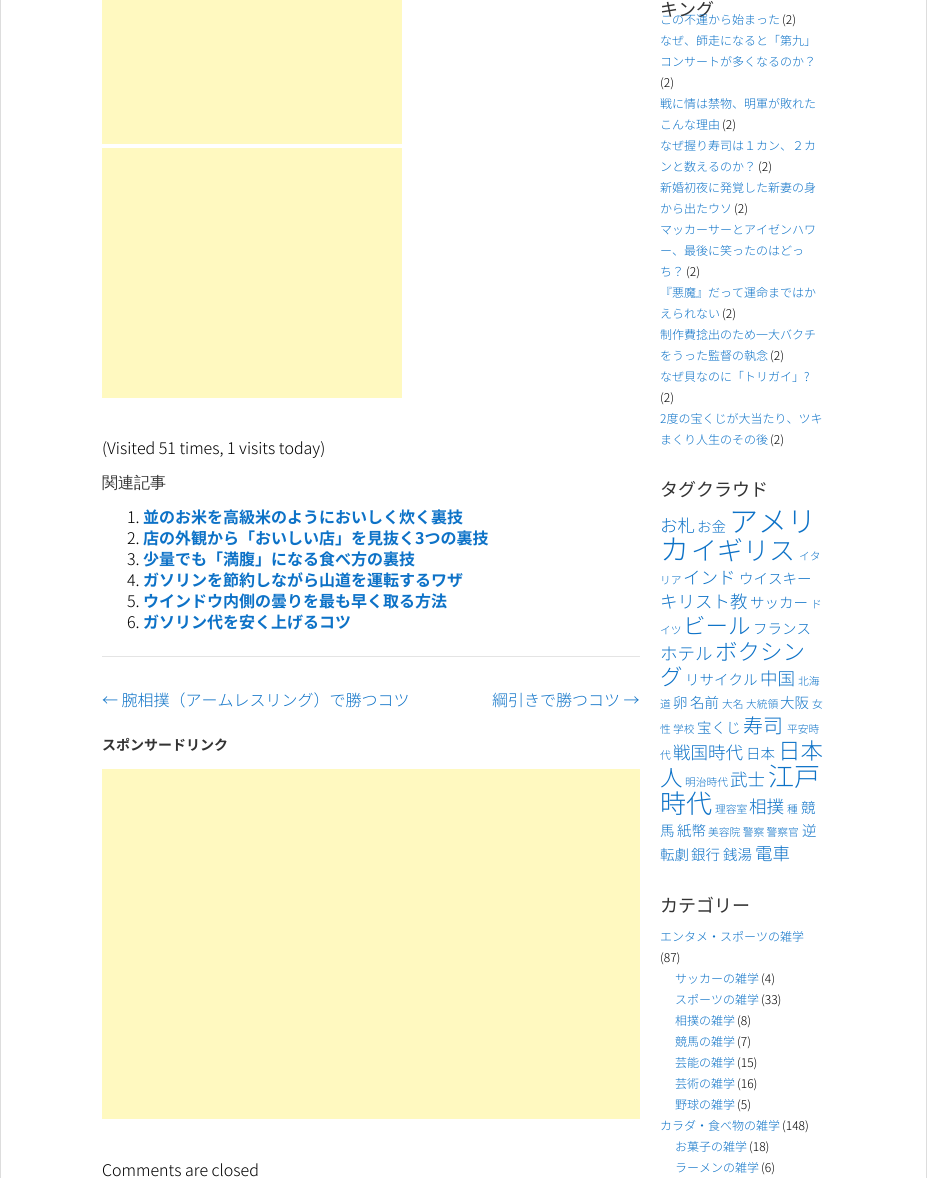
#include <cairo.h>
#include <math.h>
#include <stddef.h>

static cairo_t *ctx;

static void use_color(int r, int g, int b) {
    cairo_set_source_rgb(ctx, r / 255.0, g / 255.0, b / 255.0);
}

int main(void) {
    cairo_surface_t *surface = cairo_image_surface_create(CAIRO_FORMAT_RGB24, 927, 1178);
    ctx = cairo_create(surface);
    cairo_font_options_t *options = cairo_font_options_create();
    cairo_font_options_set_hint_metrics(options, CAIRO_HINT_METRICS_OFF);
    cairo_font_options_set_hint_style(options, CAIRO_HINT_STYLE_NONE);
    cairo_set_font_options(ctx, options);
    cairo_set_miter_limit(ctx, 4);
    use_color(255, 255, 255);
    cairo_paint(ctx);
    cairo_rectangle(ctx, 0.5, -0.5, 926, 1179);
    use_color(221, 221, 221);
    cairo_set_line_width(ctx, 1);
    cairo_stroke(ctx);
    use_color(255, 249, 192);
    cairo_rectangle(ctx, 102, 0, 300, 144);
    cairo_fill(ctx);
    cairo_rectangle(ctx, 102, 148, 300, 250);
    cairo_fill(ctx);
    cairo_select_font_face(ctx, "Noto Sans JP Light", CAIRO_FONT_SLANT_NORMAL, CAIRO_FONT_WEIGHT_NORMAL);
    cairo_set_font_size(ctx, 16);
    use_color(0, 0, 0);
    cairo_move_to(ctx, 102, 454);
    cairo_show_text(ctx, "(Visited 51 times, 1 visits today)");
    cairo_select_font_face(ctx, "WenQuanYi Zen Hei Medium", CAIRO_FONT_SLANT_NORMAL, CAIRO_FONT_WEIGHT_NORMAL);
    use_color(51, 51, 51);
    cairo_move_to(ctx, 102, 488);
    cairo_show_text(ctx, "関連記事");
    cairo_select_font_face(ctx, "Noto Sans JP Light", CAIRO_FONT_SLANT_NORMAL, CAIRO_FONT_WEIGHT_NORMAL);
    use_color(0, 0, 0);
    cairo_move_to(ctx, 127, 523);
    cairo_show_text(ctx, "1.");
    cairo_select_font_face(ctx, "Noto Sans JP", CAIRO_FONT_SLANT_NORMAL, CAIRO_FONT_WEIGHT_BOLD);
    use_color(13, 114, 199);
    cairo_move_to(ctx, 143, 523);
    cairo_show_text(ctx, "並のお米を高級米のようにおいしく炊く裏技");
    cairo_select_font_face(ctx, "Noto Sans JP Light", CAIRO_FONT_SLANT_NORMAL, CAIRO_FONT_WEIGHT_NORMAL);
    use_color(0, 0, 0);
    cairo_move_to(ctx, 127, 544);
    cairo_show_text(ctx, "2.");
    cairo_select_font_face(ctx, "Noto Sans JP", CAIRO_FONT_SLANT_NORMAL, CAIRO_FONT_WEIGHT_BOLD);
    use_color(13, 114, 199);
    cairo_move_to(ctx, 143, 544);
    cairo_show_text(ctx, "店の外観から「おいしい店」を見抜く3つの裏技");
    cairo_select_font_face(ctx, "Noto Sans JP Light", CAIRO_FONT_SLANT_NORMAL, CAIRO_FONT_WEIGHT_NORMAL);
    use_color(0, 0, 0);
    cairo_move_to(ctx, 127, 565);
    cairo_show_text(ctx, "3.");
    cairo_select_font_face(ctx, "Noto Sans JP", CAIRO_FONT_SLANT_NORMAL, CAIRO_FONT_WEIGHT_BOLD);
    use_color(13, 114, 199);
    cairo_move_to(ctx, 143, 565);
    cairo_show_text(ctx, "少量でも「満腹」になる食べ方の裏技");
    cairo_select_font_face(ctx, "Noto Sans JP Light", CAIRO_FONT_SLANT_NORMAL, CAIRO_FONT_WEIGHT_NORMAL);
    use_color(0, 0, 0);
    cairo_move_to(ctx, 127, 586);
    cairo_show_text(ctx, "4.");
    cairo_select_font_face(ctx, "Noto Sans JP", CAIRO_FONT_SLANT_NORMAL, CAIRO_FONT_WEIGHT_BOLD);
    use_color(13, 114, 199);
    cairo_move_to(ctx, 143, 586);
    cairo_show_text(ctx, "ガソリンを節約しながら山道を運転するワザ");
    cairo_select_font_face(ctx, "Noto Sans JP Light", CAIRO_FONT_SLANT_NORMAL, CAIRO_FONT_WEIGHT_NORMAL);
    use_color(0, 0, 0);
    cairo_move_to(ctx, 127, 607);
    cairo_show_text(ctx, "5.");
    cairo_select_font_face(ctx, "Noto Sans JP", CAIRO_FONT_SLANT_NORMAL, CAIRO_FONT_WEIGHT_BOLD);
    use_color(13, 114, 199);
    cairo_move_to(ctx, 143, 607);
    cairo_show_text(ctx, "ウインドウ内側の曇りを最も早く取る方法");
    cairo_select_font_face(ctx, "Noto Sans JP Light", CAIRO_FONT_SLANT_NORMAL, CAIRO_FONT_WEIGHT_NORMAL);
    use_color(0, 0, 0);
    cairo_move_to(ctx, 127, 628);
    cairo_show_text(ctx, "6.");
    cairo_select_font_face(ctx, "Noto Sans JP", CAIRO_FONT_SLANT_NORMAL, CAIRO_FONT_WEIGHT_BOLD);
    use_color(13, 114, 199);
    cairo_move_to(ctx, 143, 628);
    cairo_show_text(ctx, "ガソリン代を安く上げるコツ");
    use_color(228, 228, 228);
    cairo_rectangle(ctx, 102, 656, 538, 1);
    cairo_fill(ctx);
    cairo_select_font_face(ctx, "Noto Sans JP Light", CAIRO_FONT_SLANT_NORMAL, CAIRO_FONT_WEIGHT_NORMAL);
    use_color(13, 114, 199);
    cairo_move_to(ctx, 102, 706);
    cairo_show_text(ctx, "← 腕相撲（アームレスリング）で勝つコツ");
    cairo_move_to(ctx, 492, 706);
    cairo_show_text(ctx, "綱引きで勝つコツ →");
    cairo_select_font_face(ctx, "Noto Sans JP", CAIRO_FONT_SLANT_NORMAL, CAIRO_FONT_WEIGHT_BOLD);
    cairo_set_font_size(ctx, 14);
    use_color(51, 51, 51);
    cairo_move_to(ctx, 102, 750);
    cairo_show_text(ctx, "スポンサードリンク");
    use_color(255, 249, 192);
    cairo_rectangle(ctx, 102, 769, 538, 350);
    cairo_fill(ctx);
    cairo_select_font_face(ctx, "Noto Sans JP Light", CAIRO_FONT_SLANT_NORMAL, CAIRO_FONT_WEIGHT_NORMAL);
    cairo_set_font_size(ctx, 16);
    use_color(0, 0, 0);
    cairo_move_to(ctx, 102, 1176);
    cairo_show_text(ctx, "Comments are closed");
    cairo_select_font_face(ctx, "Noto Sans JP", CAIRO_FONT_SLANT_NORMAL, CAIRO_FONT_WEIGHT_NORMAL);
    cairo_set_font_size(ctx, 18);
    use_color(51, 51, 51);
    cairo_move_to(ctx, 660, 16);
    cairo_show_text(ctx, "キング");
    cairo_select_font_face(ctx, "Noto Sans JP Light", CAIRO_FONT_SLANT_NORMAL, CAIRO_FONT_WEIGHT_NORMAL);
    cairo_set_font_size(ctx, 12);
    use_color(13, 114, 199);
    cairo_move_to(ctx, 660, 24);
    cairo_show_text(ctx, "この不運から始まった");
    use_color(0, 0, 0);
    cairo_move_to(ctx, 782, 24);
    cairo_show_text(ctx, "(2)");
    use_color(13, 114, 199);
    cairo_move_to(ctx, 660, 45);
    cairo_show_text(ctx, "なぜ、師走になると「第九」");
    cairo_move_to(ctx, 660, 66);
    cairo_show_text(ctx, "コンサートが多くなるのか？");
    use_color(0, 0, 0);
    cairo_move_to(ctx, 660, 87);
    cairo_show_text(ctx, "(2)");
    use_color(13, 114, 199);
    cairo_move_to(ctx, 660, 108);
    cairo_show_text(ctx, "戦に情は禁物、明軍が敗れた");
    cairo_move_to(ctx, 660, 129);
    cairo_show_text(ctx, "こんな理由");
    use_color(0, 0, 0);
    cairo_move_to(ctx, 722, 129);
    cairo_show_text(ctx, "(2)");
    use_color(13, 114, 199);
    cairo_move_to(ctx, 660, 150);
    cairo_show_text(ctx, "なぜ握り寿司は１カン、２カ");
    cairo_move_to(ctx, 660, 171);
    cairo_show_text(ctx, "ンと数えるのか？");
    use_color(0, 0, 0);
    cairo_move_to(ctx, 758, 171);
    cairo_show_text(ctx, "(2)");
    use_color(13, 114, 199);
    cairo_move_to(ctx, 660, 192);
    cairo_show_text(ctx, "新婚初夜に発覚した新妻の身");
    cairo_move_to(ctx, 660, 213);
    cairo_show_text(ctx, "から出たウソ");
    use_color(0, 0, 0);
    cairo_move_to(ctx, 734, 213);
    cairo_show_text(ctx, "(2)");
    use_color(13, 114, 199);
    cairo_move_to(ctx, 660, 234);
    cairo_show_text(ctx, "マッカーサーとアイゼンハワ");
    cairo_move_to(ctx, 660, 255);
    cairo_show_text(ctx, "ー、最後に笑ったのはどっ");
    cairo_move_to(ctx, 660, 276);
    cairo_show_text(ctx, "ち？");
    use_color(0, 0, 0);
    cairo_move_to(ctx, 686, 276);
    cairo_show_text(ctx, "(2)");
    use_color(13, 114, 199);
    cairo_move_to(ctx, 660, 297);
    cairo_show_text(ctx, "『悪魔』だって運命まではか");
    cairo_move_to(ctx, 660, 318);
    cairo_show_text(ctx, "えられない");
    use_color(0, 0, 0);
    cairo_move_to(ctx, 722, 318);
    cairo_show_text(ctx, "(2)");
    use_color(13, 114, 199);
    cairo_move_to(ctx, 660, 339);
    cairo_show_text(ctx, "制作費捻出のため一大バクチ");
    cairo_move_to(ctx, 660, 360);
    cairo_show_text(ctx, "をうった監督の執念");
    use_color(0, 0, 0);
    cairo_move_to(ctx, 770, 360);
    cairo_show_text(ctx, "(2)");
    use_color(13, 114, 199);
    cairo_move_to(ctx, 660, 381);
    cairo_show_text(ctx, "なぜ貝なのに「トリガイ」?");
    use_color(0, 0, 0);
    cairo_move_to(ctx, 660, 402);
    cairo_show_text(ctx, "(2)");
    use_color(13, 114, 199);
    cairo_move_to(ctx, 660, 423);
    cairo_show_text(ctx, "2度の宝くじが大当たり、ツキ");
    cairo_move_to(ctx, 660, 444);
    cairo_show_text(ctx, "まくり人生のその後");
    use_color(0, 0, 0);
    cairo_move_to(ctx, 770, 444);
    cairo_show_text(ctx, "(2)");
    cairo_select_font_face(ctx, "Noto Sans JP", CAIRO_FONT_SLANT_NORMAL, CAIRO_FONT_WEIGHT_NORMAL);
    cairo_set_font_size(ctx, 18);
    use_color(51, 51, 51);
    cairo_move_to(ctx, 660, 496);
    cairo_show_text(ctx, "タグクラウド");
    cairo_select_font_face(ctx, "Noto Sans JP Light", CAIRO_FONT_SLANT_NORMAL, CAIRO_FONT_WEIGHT_NORMAL);
    cairo_set_font_size(ctx, 17.5);
    use_color(13, 114, 199);
    cairo_move_to(ctx, 660, 532);
    cairo_show_text(ctx, "お札");
    cairo_set_font_size(ctx, 14.5);
    cairo_move_to(ctx, 697, 532);
    cairo_show_text(ctx, "お金");
    cairo_set_font_size(ctx, 29);
    cairo_move_to(ctx, 729, 532);
    cairo_show_text(ctx, "アメリ");
    cairo_move_to(ctx, 660, 560);
    cairo_show_text(ctx, "カ");
    cairo_set_font_size(ctx, 26);
    cairo_move_to(ctx, 691, 560);
    cairo_show_text(ctx, "イギリス");
    cairo_set_font_size(ctx, 10.75);
    cairo_move_to(ctx, 799, 560);
    cairo_show_text(ctx, "イタ");
    cairo_move_to(ctx, 660, 584);
    cairo_show_text(ctx, "リア");
    cairo_set_font_size(ctx, 17.5);
    cairo_move_to(ctx, 683, 584);
    cairo_show_text(ctx, "インド");
    cairo_set_font_size(ctx, 14.5);
    cairo_move_to(ctx, 739, 584);
    cairo_show_text(ctx, "ウイスキー");
    cairo_set_font_size(ctx, 17.5);
    cairo_move_to(ctx, 660, 608);
    cairo_show_text(ctx, "キリスト教");
    cairo_set_font_size(ctx, 14.5);
    cairo_move_to(ctx, 750, 608);
    cairo_show_text(ctx, "サッカー");
    cairo_set_font_size(ctx, 10.75);
    cairo_move_to(ctx, 811, 608);
    cairo_show_text(ctx, "ド");
    cairo_move_to(ctx, 660, 634);
    cairo_show_text(ctx, "イツ");
    cairo_set_font_size(ctx, 22.5);
    cairo_move_to(ctx, 683, 634);
    cairo_show_text(ctx, "ビール");
    cairo_set_font_size(ctx, 14.5);
    cairo_move_to(ctx, 753, 634);
    cairo_show_text(ctx, "フランス");
    cairo_set_font_size(ctx, 17.5);
    cairo_move_to(ctx, 660, 660);
    cairo_show_text(ctx, "ホテル");
    cairo_set_font_size(ctx, 22.5);
    cairo_move_to(ctx, 715, 660);
    cairo_show_text(ctx, "ボクシン");
    cairo_move_to(ctx, 660, 685);
    cairo_show_text(ctx, "グ");
    cairo_set_font_size(ctx, 14.5);
    cairo_move_to(ctx, 685, 685);
    cairo_show_text(ctx, "リサイクル");
    cairo_set_font_size(ctx, 17.5);
    cairo_move_to(ctx, 760, 685);
    cairo_show_text(ctx, "中国");
    cairo_set_font_size(ctx, 10.75);
    cairo_move_to(ctx, 798, 685);
    cairo_show_text(ctx, "北海");
    cairo_move_to(ctx, 660, 708);
    cairo_show_text(ctx, "道");
    cairo_set_font_size(ctx, 14.5);
    cairo_move_to(ctx, 673, 708);
    cairo_show_text(ctx, "卵");
    cairo_move_to(ctx, 690, 708);
    cairo_show_text(ctx, "名前");
    cairo_set_font_size(ctx, 10.75);
    cairo_move_to(ctx, 722, 708);
    cairo_show_text(ctx, "大名 大統領");
    cairo_set_font_size(ctx, 14.5);
    cairo_move_to(ctx, 780, 708);
    cairo_show_text(ctx, "大阪");
    cairo_set_font_size(ctx, 10.75);
    cairo_move_to(ctx, 812, 708);
    cairo_show_text(ctx, "女");
    cairo_move_to(ctx, 660, 733);
    cairo_show_text(ctx, "性");
    cairo_move_to(ctx, 673, 733);
    cairo_show_text(ctx, "学校");
    cairo_set_font_size(ctx, 14.5);
    cairo_move_to(ctx, 697, 733);
    cairo_show_text(ctx, "宝くじ");
    cairo_set_font_size(ctx, 20);
    cairo_move_to(ctx, 743, 733);
    cairo_show_text(ctx, "寿司");
    cairo_set_font_size(ctx, 10.75);
    cairo_move_to(ctx, 787, 733);
    cairo_show_text(ctx, "平安時");
    cairo_move_to(ctx, 660, 759);
    cairo_show_text(ctx, "代");
    cairo_set_font_size(ctx, 17.5);
    cairo_move_to(ctx, 673, 759);
    cairo_show_text(ctx, "戦国時代");
    cairo_set_font_size(ctx, 14.5);
    cairo_move_to(ctx, 746, 759);
    cairo_show_text(ctx, "日本");
    cairo_set_font_size(ctx, 22.5);
    cairo_move_to(ctx, 778, 759);
    cairo_show_text(ctx, "日本");
    cairo_move_to(ctx, 660, 786);
    cairo_show_text(ctx, "人");
    cairo_set_font_size(ctx, 10.75);
    cairo_move_to(ctx, 685, 786);
    cairo_show_text(ctx, "明治時代");
    cairo_set_font_size(ctx, 17.5);
    cairo_move_to(ctx, 730, 786);
    cairo_show_text(ctx, "武士");
    cairo_set_font_size(ctx, 26);
    cairo_move_to(ctx, 768, 786);
    cairo_show_text(ctx, "江戸");
    cairo_move_to(ctx, 660, 813);
    cairo_show_text(ctx, "時代");
    cairo_set_font_size(ctx, 10.75);
    cairo_move_to(ctx, 715, 813);
    cairo_show_text(ctx, "理容室");
    cairo_set_font_size(ctx, 17.5);
    cairo_move_to(ctx, 749, 813);
    cairo_show_text(ctx, "相撲");
    cairo_set_font_size(ctx, 10.75);
    cairo_move_to(ctx, 787, 813);
    cairo_show_text(ctx, "種");
    cairo_set_font_size(ctx, 14.5);
    cairo_move_to(ctx, 801, 813);
    cairo_show_text(ctx, "競");
    cairo_move_to(ctx, 660, 836);
    cairo_show_text(ctx, "馬");
    cairo_move_to(ctx, 677, 836);
    cairo_show_text(ctx, "紙幣");
    cairo_set_font_size(ctx, 10.75);
    cairo_move_to(ctx, 708, 836);
    cairo_show_text(ctx, "美容院 警察 警察官");
    cairo_set_font_size(ctx, 14.5);
    cairo_move_to(ctx, 802, 836);
    cairo_show_text(ctx, "逆");
    cairo_move_to(ctx, 660, 860);
    cairo_show_text(ctx, "転劇");
    cairo_move_to(ctx, 691, 860);
    cairo_show_text(ctx, "銀行");
    cairo_move_to(ctx, 723, 860);
    cairo_show_text(ctx, "銭湯");
    cairo_set_font_size(ctx, 17.5);
    cairo_move_to(ctx, 755, 860);
    cairo_show_text(ctx, "電車");
    cairo_select_font_face(ctx, "Noto Sans JP", CAIRO_FONT_SLANT_NORMAL, CAIRO_FONT_WEIGHT_NORMAL);
    cairo_set_font_size(ctx, 18);
    use_color(51, 51, 51);
    cairo_move_to(ctx, 660, 912);
    cairo_show_text(ctx, "カテゴリー");
    cairo_select_font_face(ctx, "Noto Sans JP Light", CAIRO_FONT_SLANT_NORMAL, CAIRO_FONT_WEIGHT_NORMAL);
    cairo_set_font_size(ctx, 12);
    use_color(13, 114, 199);
    cairo_move_to(ctx, 660, 941);
    cairo_show_text(ctx, "エンタメ・スポーツの雑学");
    use_color(0, 0, 0);
    cairo_move_to(ctx, 660, 962);
    cairo_show_text(ctx, "(87)");
    use_color(13, 114, 199);
    cairo_move_to(ctx, 675, 983);
    cairo_show_text(ctx, "サッカーの雑学");
    use_color(0, 0, 0);
    cairo_move_to(ctx, 761, 983);
    cairo_show_text(ctx, "(4)");
    use_color(13, 114, 199);
    cairo_move_to(ctx, 675, 1004);
    cairo_show_text(ctx, "スポーツの雑学");
    use_color(0, 0, 0);
    cairo_move_to(ctx, 761, 1004);
    cairo_show_text(ctx, "(33)");
    use_color(13, 114, 199);
    cairo_move_to(ctx, 675, 1025);
    cairo_show_text(ctx, "相撲の雑学");
    use_color(0, 0, 0);
    cairo_move_to(ctx, 737, 1025);
    cairo_show_text(ctx, "(8)");
    use_color(13, 114, 199);
    cairo_move_to(ctx, 675, 1046);
    cairo_show_text(ctx, "競馬の雑学");
    use_color(0, 0, 0);
    cairo_move_to(ctx, 737, 1046);
    cairo_show_text(ctx, "(7)");
    use_color(13, 114, 199);
    cairo_move_to(ctx, 675, 1067);
    cairo_show_text(ctx, "芸能の雑学");
    use_color(0, 0, 0);
    cairo_move_to(ctx, 737, 1067);
    cairo_show_text(ctx, "(15)");
    use_color(13, 114, 199);
    cairo_move_to(ctx, 675, 1088);
    cairo_show_text(ctx, "芸術の雑学");
    use_color(0, 0, 0);
    cairo_move_to(ctx, 737, 1088);
    cairo_show_text(ctx, "(16)");
    use_color(13, 114, 199);
    cairo_move_to(ctx, 675, 1109);
    cairo_show_text(ctx, "野球の雑学");
    use_color(0, 0, 0);
    cairo_move_to(ctx, 737, 1109);
    cairo_show_text(ctx, "(5)");
    use_color(13, 114, 199);
    cairo_move_to(ctx, 660, 1130);
    cairo_show_text(ctx, "カラダ・食べ物の雑学");
    use_color(0, 0, 0);
    cairo_move_to(ctx, 782, 1130);
    cairo_show_text(ctx, "(148)");
    use_color(13, 114, 199);
    cairo_move_to(ctx, 675, 1151);
    cairo_show_text(ctx, "お菓子の雑学");
    use_color(0, 0, 0);
    cairo_move_to(ctx, 749, 1151);
    cairo_show_text(ctx, "(18)");
    use_color(13, 114, 199);
    cairo_move_to(ctx, 675, 1172);
    cairo_show_text(ctx, "ラーメンの雑学");
    use_color(0, 0, 0);
    cairo_move_to(ctx, 761, 1172);
    cairo_show_text(ctx, "(6)");
    cairo_surface_write_to_png(surface, "result.png");
    cairo_font_options_destroy(options);
    cairo_destroy(ctx);
    cairo_surface_destroy(surface);
    return 0;
}
